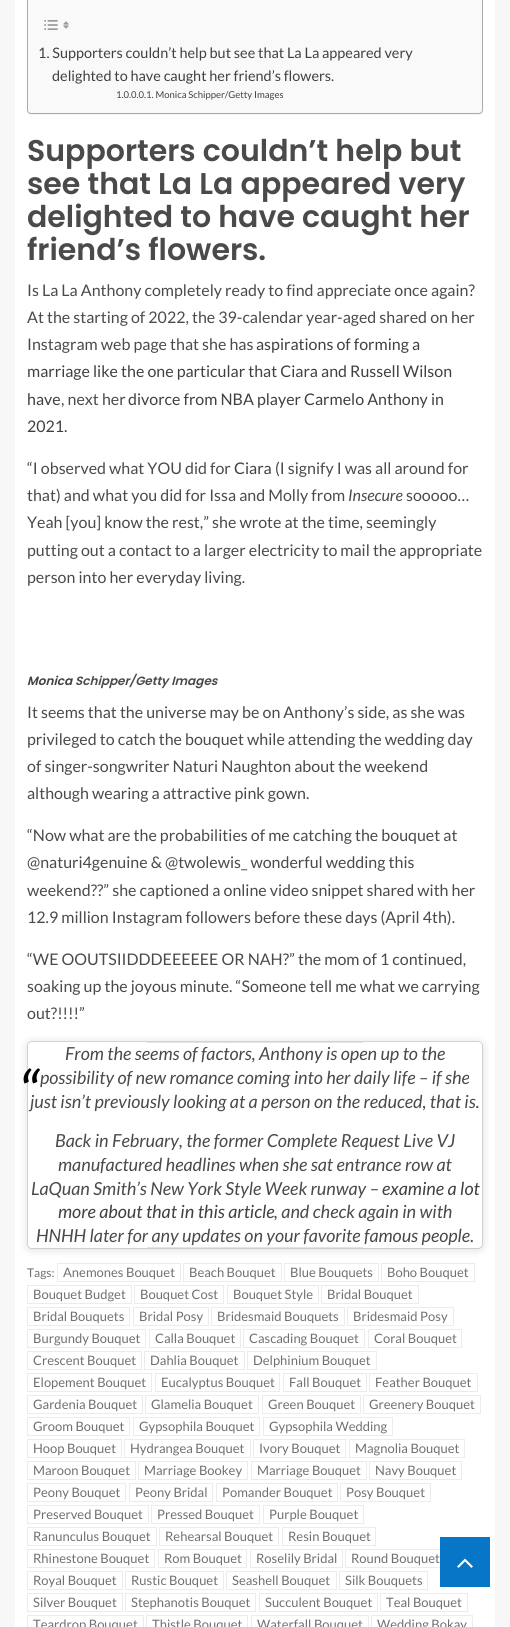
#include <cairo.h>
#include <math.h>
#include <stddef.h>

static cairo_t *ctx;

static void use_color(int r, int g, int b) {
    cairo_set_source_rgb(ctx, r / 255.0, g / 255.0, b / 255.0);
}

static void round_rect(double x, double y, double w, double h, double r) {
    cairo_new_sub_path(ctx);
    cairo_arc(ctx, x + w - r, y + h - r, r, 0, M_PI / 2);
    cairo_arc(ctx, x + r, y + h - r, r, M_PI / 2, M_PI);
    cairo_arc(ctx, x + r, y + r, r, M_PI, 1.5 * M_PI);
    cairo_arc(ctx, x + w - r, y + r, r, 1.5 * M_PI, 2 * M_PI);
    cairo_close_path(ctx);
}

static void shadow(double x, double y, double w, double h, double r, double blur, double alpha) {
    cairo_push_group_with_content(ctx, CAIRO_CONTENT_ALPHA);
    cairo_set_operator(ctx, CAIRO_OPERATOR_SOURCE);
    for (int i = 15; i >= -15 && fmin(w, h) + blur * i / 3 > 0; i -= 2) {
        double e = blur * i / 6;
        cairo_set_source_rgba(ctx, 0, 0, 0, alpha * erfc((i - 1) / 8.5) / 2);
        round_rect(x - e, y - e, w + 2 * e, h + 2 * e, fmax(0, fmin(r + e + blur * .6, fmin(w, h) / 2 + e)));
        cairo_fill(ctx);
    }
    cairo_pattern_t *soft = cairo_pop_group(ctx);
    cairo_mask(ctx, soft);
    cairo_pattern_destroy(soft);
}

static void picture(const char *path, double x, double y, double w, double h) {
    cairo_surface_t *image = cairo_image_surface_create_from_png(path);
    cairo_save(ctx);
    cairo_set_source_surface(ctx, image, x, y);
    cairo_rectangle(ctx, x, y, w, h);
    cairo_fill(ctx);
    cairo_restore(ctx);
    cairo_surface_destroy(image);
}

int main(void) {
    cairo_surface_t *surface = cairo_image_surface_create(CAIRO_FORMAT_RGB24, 510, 1627);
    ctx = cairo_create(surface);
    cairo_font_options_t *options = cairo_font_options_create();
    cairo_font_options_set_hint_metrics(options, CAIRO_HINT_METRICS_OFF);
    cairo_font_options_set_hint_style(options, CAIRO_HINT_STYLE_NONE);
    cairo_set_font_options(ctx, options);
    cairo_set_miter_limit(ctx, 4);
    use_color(247, 247, 247);
    cairo_paint(ctx);
    use_color(255, 255, 255);
    cairo_rectangle(ctx, 15, 0, 480, 1627);
    cairo_fill(ctx);
    use_color(0, 0, 0);
    shadow(27, -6, 456, 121, 4, 0.5, 0.05);
    use_color(249, 249, 249);
    round_rect(27.5, -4.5, 455, 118, 3.5);
    cairo_fill_preserve(ctx);
    use_color(170, 170, 170);
    cairo_set_line_width(ctx, 1);
    cairo_stroke(ctx);
    picture("img1.png", 44, 20, 14, 10);
    picture("img2.png", 63, 21, 6, 8);
    cairo_select_font_face(ctx, "Lato", CAIRO_FONT_SLANT_NORMAL, CAIRO_FONT_WEIGHT_NORMAL);
    cairo_set_font_size(ctx, 14.45);
    use_color(64, 64, 64);
    cairo_move_to(ctx, 38, 58);
    cairo_show_text(ctx, "1. Supporters couldn’t help but see that La La appeared very");
    cairo_move_to(ctx, 52, 81);
    cairo_show_text(ctx, "delighted to have caught her friend’s flowers.");
    cairo_set_font_size(ctx, 9.5);
    cairo_move_to(ctx, 116, 98);
    cairo_show_text(ctx, "1.0.0.0.1. Monica Schipper/Getty Images");
    cairo_select_font_face(ctx, "Poppins SemiBold", CAIRO_FONT_SLANT_NORMAL, CAIRO_FONT_WEIGHT_NORMAL);
    cairo_set_font_size(ctx, 30);
    use_color(74, 74, 74);
    cairo_move_to(ctx, 27, 161);
    cairo_show_text(ctx, "Supporters couldn’t help but");
    cairo_move_to(ctx, 27, 194);
    cairo_show_text(ctx, "see that La La appeared very");
    cairo_move_to(ctx, 27, 227);
    cairo_show_text(ctx, "delighted to have caught her");
    cairo_move_to(ctx, 27, 260);
    cairo_show_text(ctx, "friend’s flowers.");
    cairo_select_font_face(ctx, "Lato", CAIRO_FONT_SLANT_NORMAL, CAIRO_FONT_WEIGHT_NORMAL);
    cairo_set_font_size(ctx, 16);
    cairo_move_to(ctx, 27, 296);
    cairo_show_text(ctx, "Is La La Anthony completely ready to find appreciate once again?");
    cairo_move_to(ctx, 27, 323);
    cairo_show_text(ctx, "At the starting of 2022, the 39-calendar year-aged shared on her");
    cairo_move_to(ctx, 27, 350);
    cairo_show_text(ctx, "Instagram web page that she has");
    use_color(64, 64, 64);
    cairo_move_to(ctx, 256, 350);
    cairo_show_text(ctx, "aspirations of forming a");
    cairo_move_to(ctx, 27, 377);
    cairo_show_text(ctx, "marriage like the one particular that Ciara and Russell Wilson");
    cairo_move_to(ctx, 27, 405);
    cairo_show_text(ctx, "have");
    use_color(74, 74, 74);
    cairo_move_to(ctx, 61, 405);
    cairo_show_text(ctx, ", next her");
    use_color(64, 64, 64);
    cairo_move_to(ctx, 128, 405);
    cairo_show_text(ctx, "divorce from NBA player Carmelo Anthony in");
    cairo_move_to(ctx, 27, 432);
    cairo_show_text(ctx, "2021.");
    use_color(74, 74, 74);
    cairo_move_to(ctx, 27, 474);
    cairo_show_text(ctx, "“I observed what YOU did for");
    use_color(64, 64, 64);
    cairo_move_to(ctx, 234, 474);
    cairo_show_text(ctx, "Ciara");
    use_color(74, 74, 74);
    cairo_move_to(ctx, 275, 474);
    cairo_show_text(ctx, "(I signify I was all around for");
    cairo_move_to(ctx, 27, 501);
    cairo_show_text(ctx, "that) and what you did for Issa and Molly from");
    cairo_select_font_face(ctx, "Lato", CAIRO_FONT_SLANT_ITALIC, CAIRO_FONT_WEIGHT_NORMAL);
    cairo_move_to(ctx, 348, 501);
    cairo_show_text(ctx, "Insecure");
    cairo_select_font_face(ctx, "Lato", CAIRO_FONT_SLANT_NORMAL, CAIRO_FONT_WEIGHT_NORMAL);
    cairo_move_to(ctx, 406, 501);
    cairo_show_text(ctx, "sooooo…");
    cairo_move_to(ctx, 27, 528);
    cairo_show_text(ctx, "Yeah [you] know the rest,” she wrote at the time, seemingly");
    cairo_move_to(ctx, 27, 556);
    cairo_show_text(ctx, "putting out a contact to a larger electricity to mail the appropriate");
    cairo_move_to(ctx, 27, 583);
    cairo_show_text(ctx, "person into her everyday living.");
    cairo_select_font_face(ctx, "Poppins SemiBold", CAIRO_FONT_SLANT_ITALIC, CAIRO_FONT_WEIGHT_NORMAL);
    cairo_set_font_size(ctx, 12);
    use_color(64, 64, 64);
    cairo_move_to(ctx, 27, 685);
    cairo_show_text(ctx, "Monica");
    use_color(74, 74, 74);
    cairo_move_to(ctx, 75, 685);
    cairo_show_text(ctx, "Schipper/Getty Images");
    cairo_select_font_face(ctx, "Lato", CAIRO_FONT_SLANT_NORMAL, CAIRO_FONT_WEIGHT_NORMAL);
    cairo_set_font_size(ctx, 16);
    cairo_move_to(ctx, 27, 718);
    cairo_show_text(ctx, "It seems that the universe may be on Anthony’s side, as she was");
    cairo_move_to(ctx, 27, 745);
    cairo_show_text(ctx, "privileged to catch the bouquet while attending the wedding day");
    cairo_move_to(ctx, 27, 772);
    cairo_show_text(ctx, "of singer-songwriter Naturi Naughton about the weekend");
    cairo_move_to(ctx, 27, 799);
    cairo_show_text(ctx, "although wearing a attractive pink gown.");
    cairo_move_to(ctx, 27, 841);
    cairo_show_text(ctx, "“Now what are the probabilities of me catching the bouquet at");
    cairo_move_to(ctx, 27, 868);
    cairo_show_text(ctx, "@naturi4genuine & @twolewis_ wonderful wedding this");
    cairo_move_to(ctx, 27, 896);
    cairo_show_text(ctx, "weekend?\077” she captioned a online video snippet shared with her");
    cairo_move_to(ctx, 27, 923);
    cairo_show_text(ctx, "12.9 million Instagram followers before these days (April 4th).");
    cairo_move_to(ctx, 27, 965);
    cairo_show_text(ctx, "“WE OOUTSIIDDDEEEEEE OR NAH?” the mom of 1 continued,");
    cairo_move_to(ctx, 27, 992);
    cairo_show_text(ctx, "soaking up the joyous minute. “Someone tell me what we carrying");
    cairo_move_to(ctx, 27, 1019);
    cairo_show_text(ctx, "out?!!!!”");
    use_color(0, 0, 0);
    shadow(28, 1043, 454, 206, 3, 5, 0.15);
    shadow(28, 1042, 454, 206, 3, 0.5, 0.5);
    use_color(255, 255, 255);
    round_rect(28, 1042, 454, 206, 3);
    cairo_fill(ctx);
    use_color(228, 228, 228);
    cairo_rectangle(ctx, 147, 1042, 216, 1);
    cairo_fill(ctx);
    cairo_rectangle(ctx, 147, 1247, 216, 1);
    cairo_fill(ctx);
    cairo_select_font_face(ctx, "Lato", CAIRO_FONT_SLANT_ITALIC, CAIRO_FONT_WEIGHT_NORMAL);
    cairo_set_font_size(ctx, 18);
    use_color(74, 74, 74);
    cairo_move_to(ctx, 65, 1060);
    cairo_show_text(ctx, "From the seems of factors, Anthony is open up to the");
    cairo_move_to(ctx, 40, 1084);
    cairo_show_text(ctx, "possibility of new romance coming into her daily life – if she");
    cairo_move_to(ctx, 30, 1108);
    cairo_show_text(ctx, "just isn’t previously looking at a person on the reduced, that is.");
    cairo_set_font_size(ctx, 60);
    use_color(0, 0, 0);
    cairo_move_to(ctx, 18, 1114);
    cairo_show_text(ctx, "“");
    cairo_set_font_size(ctx, 18);
    use_color(74, 74, 74);
    cairo_move_to(ctx, 55, 1147);
    cairo_show_text(ctx, "Back in February, the former Complete Request Live VJ");
    cairo_move_to(ctx, 58, 1171);
    cairo_show_text(ctx, "manufactured headlines when she sat entrance row at");
    cairo_move_to(ctx, 31, 1195);
    cairo_show_text(ctx, "LaQuan Smith’s New York Style Week runway –");
    use_color(64, 64, 64);
    cairo_move_to(ctx, 382, 1195);
    cairo_show_text(ctx, "examine a lot");
    cairo_move_to(ctx, 58, 1218);
    cairo_show_text(ctx, "more about that in this article");
    use_color(74, 74, 74);
    cairo_move_to(ctx, 274, 1218);
    cairo_show_text(ctx, ", and check again in with");
    cairo_move_to(ctx, 36, 1242);
    cairo_show_text(ctx, "HNHH later for any updates on your favorite famous people.");
    cairo_select_font_face(ctx, "Lato", CAIRO_FONT_SLANT_NORMAL, CAIRO_FONT_WEIGHT_NORMAL);
    cairo_set_font_size(ctx, 12);
    use_color(112, 112, 112);
    cairo_move_to(ctx, 27, 1277);
    cairo_show_text(ctx, "Tags:");
    cairo_rectangle(ctx, 57.5, 1263.5, 123, 18);
    use_color(236, 236, 236);
    cairo_stroke(ctx);
    cairo_set_font_size(ctx, 13);
    use_color(112, 112, 112);
    cairo_move_to(ctx, 63, 1277);
    cairo_show_text(ctx, "Anemones Bouquet");
    cairo_rectangle(ctx, 183.5, 1263.5, 98, 18);
    use_color(236, 236, 236);
    cairo_stroke(ctx);
    use_color(112, 112, 112);
    cairo_move_to(ctx, 189, 1277);
    cairo_show_text(ctx, "Beach Bouquet");
    cairo_rectangle(ctx, 284.5, 1263.5, 94, 18);
    use_color(236, 236, 236);
    cairo_stroke(ctx);
    use_color(112, 112, 112);
    cairo_move_to(ctx, 290, 1277);
    cairo_show_text(ctx, "Blue Bouquets");
    cairo_rectangle(ctx, 381.5, 1263.5, 93, 18);
    use_color(236, 236, 236);
    cairo_stroke(ctx);
    use_color(112, 112, 112);
    cairo_move_to(ctx, 387, 1277);
    cairo_show_text(ctx, "Boho Bouquet");
    cairo_rectangle(ctx, 27.5, 1285.5, 104, 18);
    use_color(236, 236, 236);
    cairo_stroke(ctx);
    use_color(112, 112, 112);
    cairo_move_to(ctx, 33, 1299);
    cairo_show_text(ctx, "Bouquet Budget");
    cairo_rectangle(ctx, 134.5, 1285.5, 89, 18);
    use_color(236, 236, 236);
    cairo_stroke(ctx);
    use_color(112, 112, 112);
    cairo_move_to(ctx, 140, 1299);
    cairo_show_text(ctx, "Bouquet Cost");
    cairo_rectangle(ctx, 227.5, 1285.5, 91, 18);
    use_color(236, 236, 236);
    cairo_stroke(ctx);
    use_color(112, 112, 112);
    cairo_move_to(ctx, 233, 1299);
    cairo_show_text(ctx, "Bouquet Style");
    cairo_rectangle(ctx, 321.5, 1285.5, 97, 18);
    use_color(236, 236, 236);
    cairo_stroke(ctx);
    use_color(112, 112, 112);
    cairo_move_to(ctx, 327, 1299);
    cairo_show_text(ctx, "Bridal Bouquet");
    cairo_rectangle(ctx, 27.5, 1307.5, 102, 18);
    use_color(236, 236, 236);
    cairo_stroke(ctx);
    use_color(112, 112, 112);
    cairo_move_to(ctx, 33, 1321);
    cairo_show_text(ctx, "Bridal Bouquets");
    cairo_rectangle(ctx, 133.5, 1307.5, 75, 18);
    use_color(236, 236, 236);
    cairo_stroke(ctx);
    use_color(112, 112, 112);
    cairo_move_to(ctx, 139, 1321);
    cairo_show_text(ctx, "Bridal Posy");
    cairo_rectangle(ctx, 211.5, 1307.5, 133, 18);
    use_color(236, 236, 236);
    cairo_stroke(ctx);
    use_color(112, 112, 112);
    cairo_move_to(ctx, 217, 1321);
    cairo_show_text(ctx, "Bridesmaid Bouquets");
    cairo_rectangle(ctx, 347.5, 1307.5, 106, 18);
    use_color(236, 236, 236);
    cairo_stroke(ctx);
    use_color(112, 112, 112);
    cairo_move_to(ctx, 353, 1321);
    cairo_show_text(ctx, "Bridesmaid Posy");
    cairo_rectangle(ctx, 27.5, 1329.5, 118, 18);
    use_color(236, 236, 236);
    cairo_stroke(ctx);
    use_color(112, 112, 112);
    cairo_move_to(ctx, 33, 1343);
    cairo_show_text(ctx, "Burgundy Bouquet");
    cairo_rectangle(ctx, 149.5, 1329.5, 91, 18);
    use_color(236, 236, 236);
    cairo_stroke(ctx);
    use_color(112, 112, 112);
    cairo_move_to(ctx, 155, 1343);
    cairo_show_text(ctx, "Calla Bouquet");
    cairo_rectangle(ctx, 243.5, 1329.5, 121, 18);
    use_color(236, 236, 236);
    cairo_stroke(ctx);
    use_color(112, 112, 112);
    cairo_move_to(ctx, 249, 1343);
    cairo_show_text(ctx, "Cascading Bouquet");
    cairo_rectangle(ctx, 368.5, 1329.5, 93, 18);
    use_color(236, 236, 236);
    cairo_stroke(ctx);
    use_color(112, 112, 112);
    cairo_move_to(ctx, 374, 1343);
    cairo_show_text(ctx, "Coral Bouquet");
    cairo_rectangle(ctx, 27.5, 1351.5, 114, 18);
    use_color(236, 236, 236);
    cairo_stroke(ctx);
    use_color(112, 112, 112);
    cairo_move_to(ctx, 33, 1365);
    cairo_show_text(ctx, "Crescent Bouquet");
    cairo_rectangle(ctx, 144.5, 1351.5, 100, 18);
    use_color(236, 236, 236);
    cairo_stroke(ctx);
    use_color(112, 112, 112);
    cairo_move_to(ctx, 150, 1365);
    cairo_show_text(ctx, "Dahlia Bouquet");
    cairo_rectangle(ctx, 247.5, 1351.5, 129, 18);
    use_color(236, 236, 236);
    cairo_stroke(ctx);
    use_color(112, 112, 112);
    cairo_move_to(ctx, 253, 1365);
    cairo_show_text(ctx, "Delphinium Bouquet");
    cairo_rectangle(ctx, 27.5, 1373.5, 124, 18);
    use_color(236, 236, 236);
    cairo_stroke(ctx);
    use_color(112, 112, 112);
    cairo_move_to(ctx, 33, 1387);
    cairo_show_text(ctx, "Elopement Bouquet");
    cairo_rectangle(ctx, 155.5, 1373.5, 124, 18);
    use_color(236, 236, 236);
    cairo_stroke(ctx);
    use_color(112, 112, 112);
    cairo_move_to(ctx, 161, 1387);
    cairo_show_text(ctx, "Eucalyptus Bouquet");
    cairo_rectangle(ctx, 283.5, 1373.5, 83, 18);
    use_color(236, 236, 236);
    cairo_stroke(ctx);
    use_color(112, 112, 112);
    cairo_move_to(ctx, 289, 1387);
    cairo_show_text(ctx, "Fall Bouquet");
    cairo_rectangle(ctx, 369.5, 1373.5, 108, 18);
    use_color(236, 236, 236);
    cairo_stroke(ctx);
    use_color(112, 112, 112);
    cairo_move_to(ctx, 375, 1387);
    cairo_show_text(ctx, "Feather Bouquet");
    cairo_rectangle(ctx, 27.5, 1395.5, 115, 18);
    use_color(236, 236, 236);
    cairo_stroke(ctx);
    use_color(112, 112, 112);
    cairo_move_to(ctx, 33, 1409);
    cairo_show_text(ctx, "Gardenia Bouquet");
    cairo_rectangle(ctx, 145.5, 1395.5, 113, 18);
    use_color(236, 236, 236);
    cairo_stroke(ctx);
    use_color(112, 112, 112);
    cairo_move_to(ctx, 151, 1409);
    cairo_show_text(ctx, "Glamelia Bouquet");
    cairo_rectangle(ctx, 262.5, 1395.5, 98, 18);
    use_color(236, 236, 236);
    cairo_stroke(ctx);
    use_color(112, 112, 112);
    cairo_move_to(ctx, 268, 1409);
    cairo_show_text(ctx, "Green Bouquet");
    cairo_rectangle(ctx, 363.5, 1395.5, 117, 18);
    use_color(236, 236, 236);
    cairo_stroke(ctx);
    use_color(112, 112, 112);
    cairo_move_to(ctx, 369, 1409);
    cairo_show_text(ctx, "Greenery Bouquet");
    cairo_rectangle(ctx, 27.5, 1417.5, 102, 18);
    use_color(236, 236, 236);
    cairo_stroke(ctx);
    use_color(112, 112, 112);
    cairo_move_to(ctx, 33, 1431);
    cairo_show_text(ctx, "Groom Bouquet");
    cairo_rectangle(ctx, 133.5, 1417.5, 126, 18);
    use_color(236, 236, 236);
    cairo_stroke(ctx);
    use_color(112, 112, 112);
    cairo_move_to(ctx, 139, 1431);
    cairo_show_text(ctx, "Gypsophila Bouquet");
    cairo_rectangle(ctx, 263.5, 1417.5, 129, 18);
    use_color(236, 236, 236);
    cairo_stroke(ctx);
    use_color(112, 112, 112);
    cairo_move_to(ctx, 269, 1431);
    cairo_show_text(ctx, "Gypsophila Wedding");
    cairo_rectangle(ctx, 27.5, 1439.5, 94, 18);
    use_color(236, 236, 236);
    cairo_stroke(ctx);
    use_color(112, 112, 112);
    cairo_move_to(ctx, 33, 1453);
    cairo_show_text(ctx, "Hoop Bouquet");
    cairo_rectangle(ctx, 124.5, 1439.5, 126, 18);
    use_color(236, 236, 236);
    cairo_stroke(ctx);
    use_color(112, 112, 112);
    cairo_move_to(ctx, 130, 1453);
    cairo_show_text(ctx, "Hydrangea Bouquet");
    cairo_rectangle(ctx, 253.5, 1439.5, 92, 18);
    use_color(236, 236, 236);
    cairo_stroke(ctx);
    use_color(112, 112, 112);
    cairo_move_to(ctx, 259, 1453);
    cairo_show_text(ctx, "Ivory Bouquet");
    cairo_rectangle(ctx, 349.5, 1439.5, 115, 18);
    use_color(236, 236, 236);
    cairo_stroke(ctx);
    use_color(112, 112, 112);
    cairo_move_to(ctx, 355, 1453);
    cairo_show_text(ctx, "Magnolia Bouquet");
    cairo_rectangle(ctx, 27.5, 1461.5, 108, 18);
    use_color(236, 236, 236);
    cairo_stroke(ctx);
    use_color(112, 112, 112);
    cairo_move_to(ctx, 33, 1475);
    cairo_show_text(ctx, "Maroon Bouquet");
    cairo_rectangle(ctx, 138.5, 1461.5, 109, 18);
    use_color(236, 236, 236);
    cairo_stroke(ctx);
    use_color(112, 112, 112);
    cairo_move_to(ctx, 144, 1475);
    cairo_show_text(ctx, "Marriage Bookey");
    cairo_rectangle(ctx, 251.5, 1461.5, 115, 18);
    use_color(236, 236, 236);
    cairo_stroke(ctx);
    use_color(112, 112, 112);
    cairo_move_to(ctx, 257, 1475);
    cairo_show_text(ctx, "Marriage Bouquet");
    cairo_rectangle(ctx, 369.5, 1461.5, 92, 18);
    use_color(236, 236, 236);
    cairo_stroke(ctx);
    use_color(112, 112, 112);
    cairo_move_to(ctx, 375, 1475);
    cairo_show_text(ctx, "Navy Bouquet");
    cairo_rectangle(ctx, 27.5, 1483.5, 98, 18);
    use_color(236, 236, 236);
    cairo_stroke(ctx);
    use_color(112, 112, 112);
    cairo_move_to(ctx, 33, 1497);
    cairo_show_text(ctx, "Peony Bouquet");
    cairo_rectangle(ctx, 129.5, 1483.5, 83, 18);
    use_color(236, 236, 236);
    cairo_stroke(ctx);
    use_color(112, 112, 112);
    cairo_move_to(ctx, 135, 1497);
    cairo_show_text(ctx, "Peony Bridal");
    cairo_rectangle(ctx, 216.5, 1483.5, 121, 18);
    use_color(236, 236, 236);
    cairo_stroke(ctx);
    use_color(112, 112, 112);
    cairo_move_to(ctx, 222, 1497);
    cairo_show_text(ctx, "Pomander Bouquet");
    cairo_rectangle(ctx, 340.5, 1483.5, 90, 18);
    use_color(236, 236, 236);
    cairo_stroke(ctx);
    use_color(112, 112, 112);
    cairo_move_to(ctx, 346, 1497);
    cairo_show_text(ctx, "Posy Bouquet");
    cairo_rectangle(ctx, 27.5, 1505.5, 121, 18);
    use_color(236, 236, 236);
    cairo_stroke(ctx);
    use_color(112, 112, 112);
    cairo_move_to(ctx, 33, 1519);
    cairo_show_text(ctx, "Preserved Bouquet");
    cairo_rectangle(ctx, 151.5, 1505.5, 108, 18);
    use_color(236, 236, 236);
    cairo_stroke(ctx);
    use_color(112, 112, 112);
    cairo_move_to(ctx, 157, 1519);
    cairo_show_text(ctx, "Pressed Bouquet");
    cairo_rectangle(ctx, 263.5, 1505.5, 100, 18);
    use_color(236, 236, 236);
    cairo_stroke(ctx);
    use_color(112, 112, 112);
    cairo_move_to(ctx, 269, 1519);
    cairo_show_text(ctx, "Purple Bouquet");
    cairo_rectangle(ctx, 27.5, 1527.5, 129, 18);
    use_color(236, 236, 236);
    cairo_stroke(ctx);
    use_color(112, 112, 112);
    cairo_move_to(ctx, 33, 1541);
    cairo_show_text(ctx, "Ranunculus Bouquet");
    cairo_rectangle(ctx, 159.5, 1527.5, 119, 18);
    use_color(236, 236, 236);
    cairo_stroke(ctx);
    use_color(112, 112, 112);
    cairo_move_to(ctx, 165, 1541);
    cairo_show_text(ctx, "Rehearsal Bouquet");
    cairo_rectangle(ctx, 282.5, 1527.5, 93, 18);
    use_color(236, 236, 236);
    cairo_stroke(ctx);
    use_color(112, 112, 112);
    cairo_move_to(ctx, 288, 1541);
    cairo_show_text(ctx, "Resin Bouquet");
    cairo_rectangle(ctx, 27.5, 1549.5, 127, 18);
    use_color(236, 236, 236);
    cairo_stroke(ctx);
    use_color(112, 112, 112);
    cairo_move_to(ctx, 33, 1563);
    cairo_show_text(ctx, "Rhinestone Bouquet");
    cairo_rectangle(ctx, 158.5, 1549.5, 88, 18);
    use_color(236, 236, 236);
    cairo_stroke(ctx);
    use_color(112, 112, 112);
    cairo_move_to(ctx, 164, 1563);
    cairo_show_text(ctx, "Rom Bouquet");
    cairo_rectangle(ctx, 250.5, 1549.5, 92, 18);
    use_color(236, 236, 236);
    cairo_stroke(ctx);
    use_color(112, 112, 112);
    cairo_move_to(ctx, 256, 1563);
    cairo_show_text(ctx, "Roselily Bridal");
    cairo_rectangle(ctx, 345.5, 1549.5, 100, 18);
    use_color(236, 236, 236);
    cairo_stroke(ctx);
    use_color(112, 112, 112);
    cairo_move_to(ctx, 351, 1563);
    cairo_show_text(ctx, "Round Bouquet");
    cairo_rectangle(ctx, 27.5, 1571.5, 95, 18);
    use_color(236, 236, 236);
    cairo_stroke(ctx);
    use_color(112, 112, 112);
    cairo_move_to(ctx, 33, 1585);
    cairo_show_text(ctx, "Royal Bouquet");
    cairo_rectangle(ctx, 125.5, 1571.5, 98, 18);
    use_color(236, 236, 236);
    cairo_stroke(ctx);
    use_color(112, 112, 112);
    cairo_move_to(ctx, 131, 1585);
    cairo_show_text(ctx, "Rustic Bouquet");
    cairo_rectangle(ctx, 226.5, 1571.5, 110, 18);
    use_color(236, 236, 236);
    cairo_stroke(ctx);
    use_color(112, 112, 112);
    cairo_move_to(ctx, 232, 1585);
    cairo_show_text(ctx, "Seashell Bouquet");
    cairo_rectangle(ctx, 339.5, 1571.5, 88, 18);
    use_color(236, 236, 236);
    cairo_stroke(ctx);
    use_color(112, 112, 112);
    cairo_move_to(ctx, 345, 1585);
    cairo_show_text(ctx, "Silk Bouquets");
    cairo_rectangle(ctx, 27.5, 1593.5, 95, 18);
    use_color(236, 236, 236);
    cairo_stroke(ctx);
    use_color(112, 112, 112);
    cairo_move_to(ctx, 33, 1607);
    cairo_show_text(ctx, "Silver Bouquet");
    cairo_rectangle(ctx, 125.5, 1593.5, 130, 18);
    use_color(236, 236, 236);
    cairo_stroke(ctx);
    use_color(112, 112, 112);
    cairo_move_to(ctx, 131, 1607);
    cairo_show_text(ctx, "Stephanotis Bouquet");
    cairo_rectangle(ctx, 259.5, 1593.5, 118, 18);
    use_color(236, 236, 236);
    cairo_stroke(ctx);
    use_color(112, 112, 112);
    cairo_move_to(ctx, 265, 1607);
    cairo_show_text(ctx, "Succulent Bouquet");
    cairo_rectangle(ctx, 380.5, 1593.5, 87, 18);
    use_color(236, 236, 236);
    cairo_stroke(ctx);
    use_color(112, 112, 112);
    cairo_move_to(ctx, 386, 1607);
    cairo_show_text(ctx, "Teal Bouquet");
    cairo_rectangle(ctx, 27.5, 1615.5, 116, 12);
    use_color(236, 236, 236);
    cairo_stroke(ctx);
    use_color(112, 112, 112);
    cairo_move_to(ctx, 33, 1629);
    cairo_show_text(ctx, "Teardrop Bouquet");
    cairo_rectangle(ctx, 146.5, 1615.5, 101, 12);
    use_color(236, 236, 236);
    cairo_stroke(ctx);
    use_color(112, 112, 112);
    cairo_move_to(ctx, 152, 1629);
    cairo_show_text(ctx, "Thistle Bouquet");
    cairo_rectangle(ctx, 251.5, 1615.5, 117, 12);
    use_color(236, 236, 236);
    cairo_stroke(ctx);
    use_color(112, 112, 112);
    cairo_move_to(ctx, 257, 1629);
    cairo_show_text(ctx, "Waterfall Bouquet");
    cairo_rectangle(ctx, 371.5, 1615.5, 101, 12);
    use_color(236, 236, 236);
    cairo_stroke(ctx);
    use_color(112, 112, 112);
    cairo_move_to(ctx, 377, 1629);
    cairo_show_text(ctx, "Wedding Bokay");
    use_color(7, 118, 198);
    cairo_rectangle(ctx, 440, 1537, 50, 50);
    cairo_fill(ctx);
    picture("img3.png", 457, 1558, 16, 10);
    cairo_surface_write_to_png(surface, "result.png");
    cairo_font_options_destroy(options);
    cairo_destroy(ctx);
    cairo_surface_destroy(surface);
    return 0;
}
